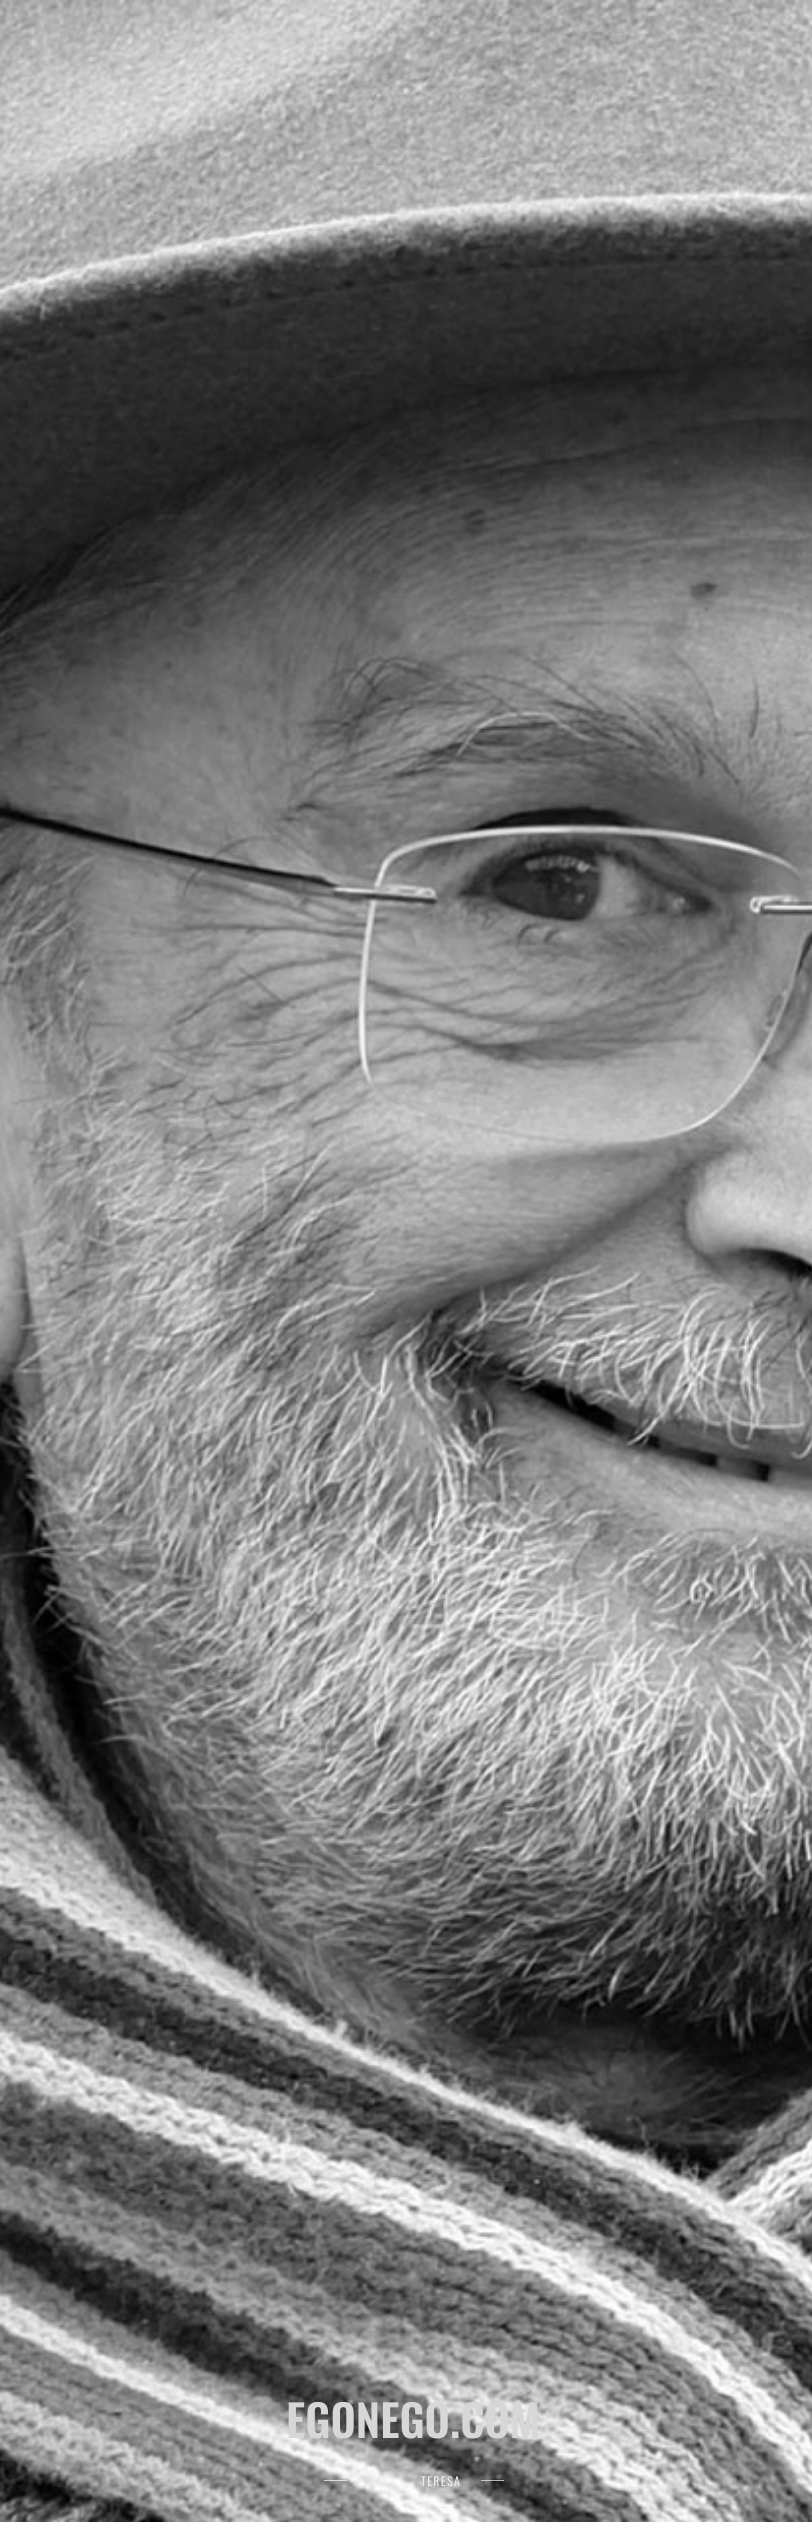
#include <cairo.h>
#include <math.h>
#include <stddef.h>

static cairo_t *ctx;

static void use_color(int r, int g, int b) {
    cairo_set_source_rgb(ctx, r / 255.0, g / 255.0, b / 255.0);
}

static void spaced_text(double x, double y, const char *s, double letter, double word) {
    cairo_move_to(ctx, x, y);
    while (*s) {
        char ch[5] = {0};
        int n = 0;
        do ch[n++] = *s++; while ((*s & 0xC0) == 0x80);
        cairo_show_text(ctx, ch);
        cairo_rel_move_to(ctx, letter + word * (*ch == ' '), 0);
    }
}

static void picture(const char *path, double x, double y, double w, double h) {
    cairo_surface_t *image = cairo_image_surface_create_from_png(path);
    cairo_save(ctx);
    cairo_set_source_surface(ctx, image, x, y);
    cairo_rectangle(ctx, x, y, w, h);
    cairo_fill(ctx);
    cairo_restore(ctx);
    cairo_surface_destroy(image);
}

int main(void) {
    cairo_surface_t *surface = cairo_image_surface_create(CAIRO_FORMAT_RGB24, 812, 2522);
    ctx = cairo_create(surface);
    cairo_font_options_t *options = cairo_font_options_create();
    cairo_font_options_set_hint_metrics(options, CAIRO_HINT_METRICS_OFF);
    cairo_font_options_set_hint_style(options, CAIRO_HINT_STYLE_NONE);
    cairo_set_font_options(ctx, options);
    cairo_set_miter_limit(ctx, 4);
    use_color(255, 255, 255);
    cairo_paint(ctx);
    picture("img1.png", 0, 0, 812, 2522);
    cairo_select_font_face(ctx, "Oswald SemiBold", CAIRO_FONT_SLANT_NORMAL, CAIRO_FONT_WEIGHT_NORMAL);
    cairo_set_font_size(ctx, 44);
    use_color(215, 215, 215);
    cairo_move_to(ctx, 286, 2438);
    cairo_show_text(ctx, "EGONEGO.COM");
    cairo_set_source_rgba(ctx, 1, 1, 1, 0.66);
    cairo_rectangle(ctx, 324, 2480, 23, 1);
    cairo_fill(ctx);
    cairo_select_font_face(ctx, "Oswald", CAIRO_FONT_SLANT_NORMAL, CAIRO_FONT_WEIGHT_NORMAL);
    cairo_set_font_size(ctx, 12);
    use_color(235, 235, 235);
    spaced_text(421, 2486, "TERESA", 1.25, 0);
    cairo_set_source_rgba(ctx, 1, 1, 1, 0.66);
    cairo_rectangle(ctx, 481, 2480, 23, 1);
    cairo_fill(ctx);
    cairo_surface_write_to_png(surface, "result.png");
    cairo_font_options_destroy(options);
    cairo_destroy(ctx);
    cairo_surface_destroy(surface);
    return 0;
}
